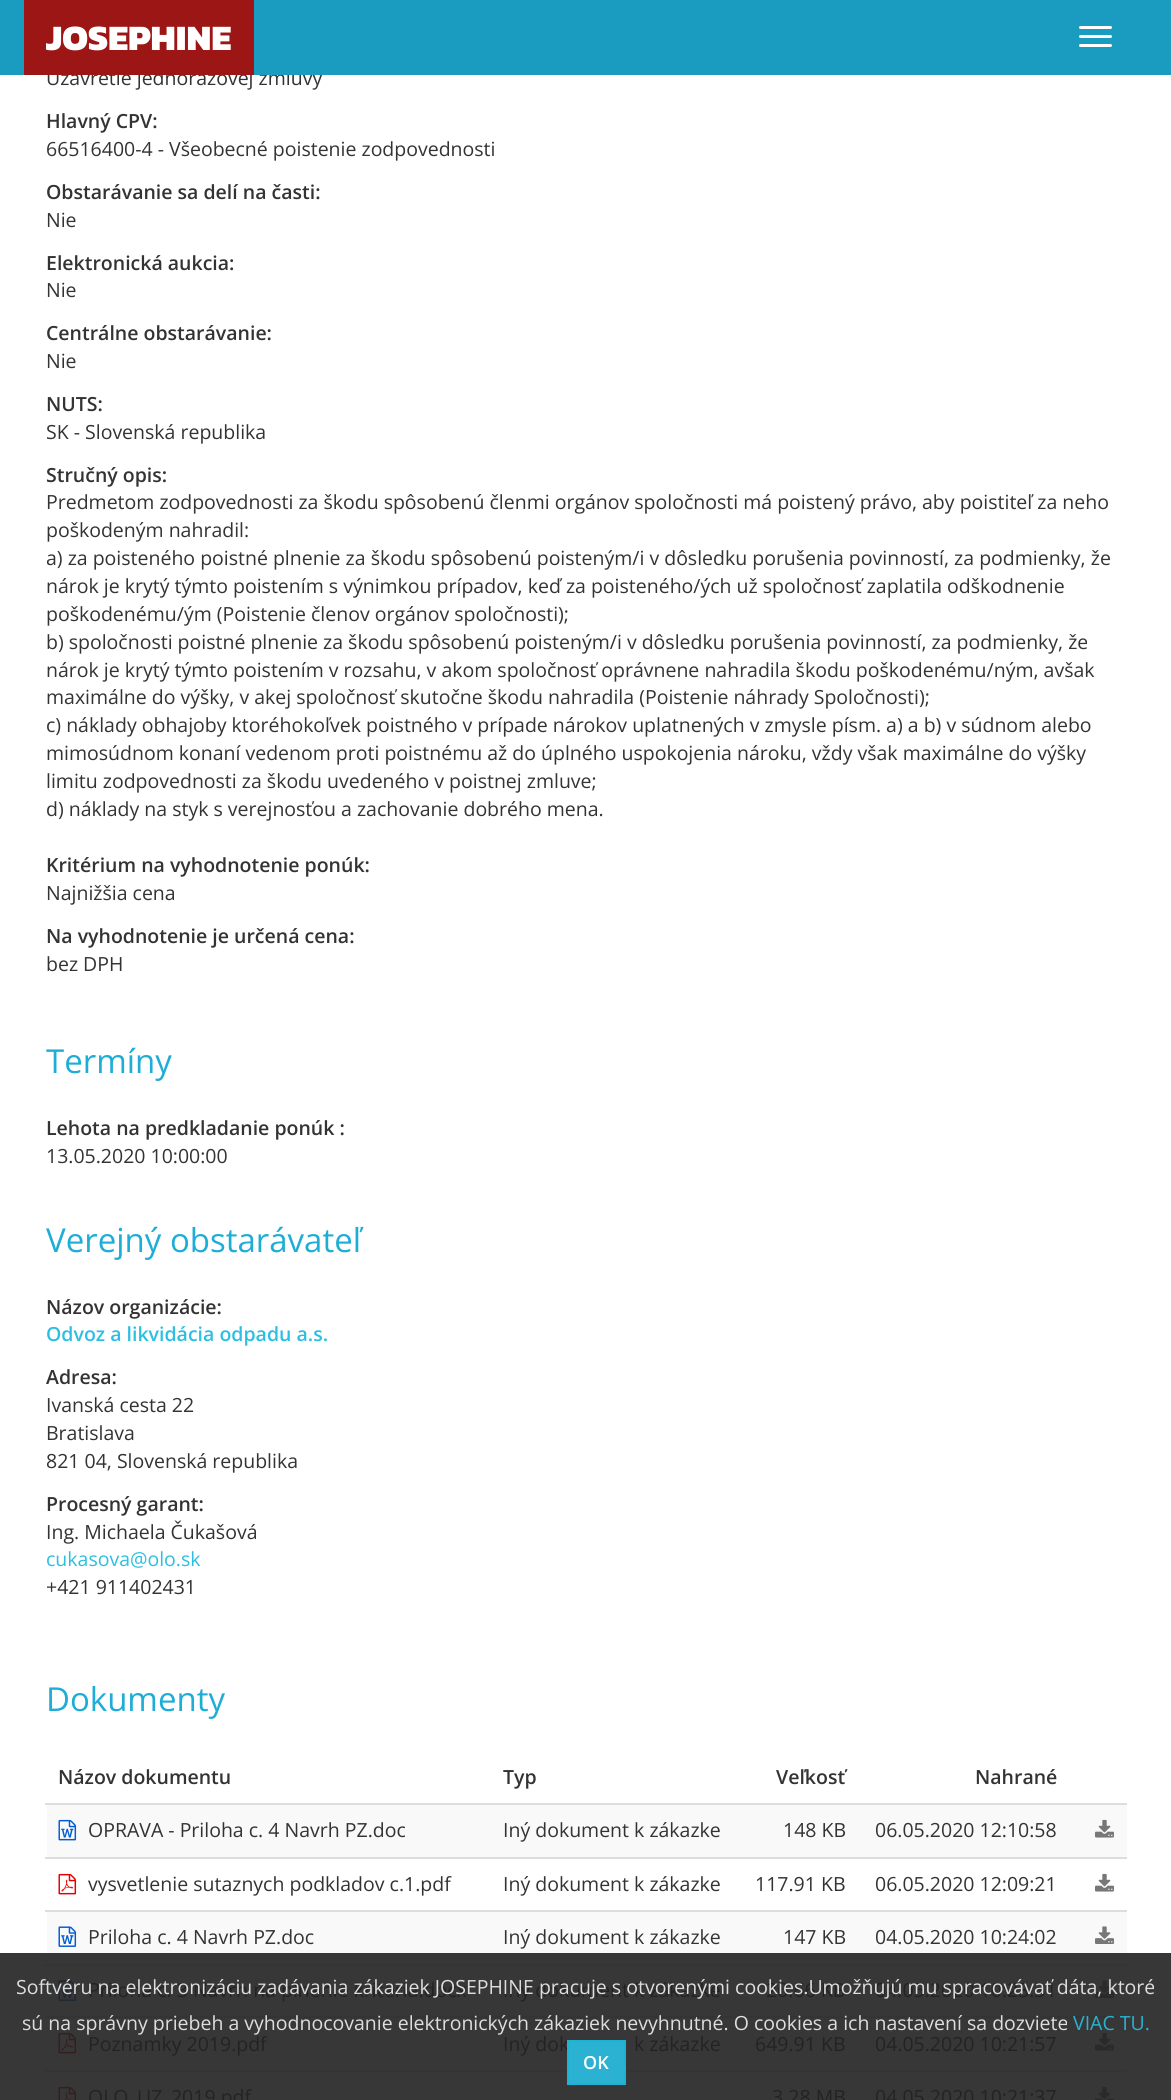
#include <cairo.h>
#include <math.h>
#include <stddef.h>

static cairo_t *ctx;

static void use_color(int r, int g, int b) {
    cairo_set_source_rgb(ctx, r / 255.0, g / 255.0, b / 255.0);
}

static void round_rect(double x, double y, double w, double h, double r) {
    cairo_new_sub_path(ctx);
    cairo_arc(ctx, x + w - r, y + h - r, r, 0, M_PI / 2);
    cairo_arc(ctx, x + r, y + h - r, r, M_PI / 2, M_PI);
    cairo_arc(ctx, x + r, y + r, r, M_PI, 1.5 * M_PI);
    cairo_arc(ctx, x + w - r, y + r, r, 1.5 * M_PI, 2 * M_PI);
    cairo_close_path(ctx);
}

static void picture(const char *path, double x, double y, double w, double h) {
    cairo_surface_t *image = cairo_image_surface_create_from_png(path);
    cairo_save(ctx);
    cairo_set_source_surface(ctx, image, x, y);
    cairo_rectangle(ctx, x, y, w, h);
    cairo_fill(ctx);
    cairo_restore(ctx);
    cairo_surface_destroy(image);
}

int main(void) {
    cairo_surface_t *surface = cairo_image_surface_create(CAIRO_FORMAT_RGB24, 1171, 2100);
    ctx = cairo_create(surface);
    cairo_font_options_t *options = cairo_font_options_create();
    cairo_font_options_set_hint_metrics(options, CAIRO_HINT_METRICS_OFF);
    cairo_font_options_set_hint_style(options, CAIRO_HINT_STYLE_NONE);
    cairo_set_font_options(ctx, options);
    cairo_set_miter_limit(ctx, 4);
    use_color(255, 255, 255);
    cairo_paint(ctx);
    use_color(55, 55, 55);
    cairo_rectangle(ctx, 0, 1953, 1171, 147);
    cairo_fill(ctx);
    cairo_select_font_face(ctx, "Open Sans", CAIRO_FONT_SLANT_NORMAL, CAIRO_FONT_WEIGHT_NORMAL);
    cairo_set_font_size(ctx, 19.5);
    use_color(51, 51, 51);
    cairo_move_to(ctx, 46, 85);
    cairo_show_text(ctx, "Uzavretie jednorázovej zmluvy");
    use_color(26, 155, 192);
    cairo_rectangle(ctx, 0, 0, 1171, 75);
    cairo_fill(ctx);
    use_color(155, 22, 20);
    cairo_rectangle(ctx, 24, 0, 230, 75);
    cairo_fill(ctx);
    cairo_select_font_face(ctx, "Kanit ExtraBold", CAIRO_FONT_SLANT_NORMAL, CAIRO_FONT_WEIGHT_NORMAL);
    cairo_set_font_size(ctx, 36);
    use_color(255, 255, 255);
    cairo_move_to(ctx, 46, 50);
    cairo_show_text(ctx, "JOSEPHINE");
    round_rect(1079, 26, 33, 3, 1.5);
    cairo_fill(ctx);
    round_rect(1079, 35, 33, 3, 1.5);
    cairo_fill(ctx);
    round_rect(1079, 44, 33, 3, 1.5);
    cairo_fill(ctx);
    cairo_select_font_face(ctx, "Open Sans SemiBold", CAIRO_FONT_SLANT_NORMAL, CAIRO_FONT_WEIGHT_NORMAL);
    cairo_set_font_size(ctx, 19.5);
    use_color(51, 51, 51);
    cairo_move_to(ctx, 46, 128);
    cairo_show_text(ctx, "Hlavný CPV:");
    cairo_select_font_face(ctx, "Open Sans", CAIRO_FONT_SLANT_NORMAL, CAIRO_FONT_WEIGHT_NORMAL);
    cairo_move_to(ctx, 46, 156);
    cairo_show_text(ctx, "66516400-4 - Všeobecné poistenie zodpovednosti");
    cairo_select_font_face(ctx, "Open Sans SemiBold", CAIRO_FONT_SLANT_NORMAL, CAIRO_FONT_WEIGHT_NORMAL);
    cairo_move_to(ctx, 46, 199);
    cairo_show_text(ctx, "Obstarávanie sa delí na časti:");
    cairo_select_font_face(ctx, "Open Sans", CAIRO_FONT_SLANT_NORMAL, CAIRO_FONT_WEIGHT_NORMAL);
    cairo_move_to(ctx, 46, 227);
    cairo_show_text(ctx, "Nie");
    cairo_select_font_face(ctx, "Open Sans SemiBold", CAIRO_FONT_SLANT_NORMAL, CAIRO_FONT_WEIGHT_NORMAL);
    cairo_move_to(ctx, 46, 270);
    cairo_show_text(ctx, "Elektronická aukcia:");
    cairo_select_font_face(ctx, "Open Sans", CAIRO_FONT_SLANT_NORMAL, CAIRO_FONT_WEIGHT_NORMAL);
    cairo_move_to(ctx, 46, 297);
    cairo_show_text(ctx, "Nie");
    cairo_select_font_face(ctx, "Open Sans SemiBold", CAIRO_FONT_SLANT_NORMAL, CAIRO_FONT_WEIGHT_NORMAL);
    cairo_move_to(ctx, 46, 340);
    cairo_show_text(ctx, "Centrálne obstarávanie:");
    cairo_select_font_face(ctx, "Open Sans", CAIRO_FONT_SLANT_NORMAL, CAIRO_FONT_WEIGHT_NORMAL);
    cairo_move_to(ctx, 46, 368);
    cairo_show_text(ctx, "Nie");
    cairo_select_font_face(ctx, "Open Sans SemiBold", CAIRO_FONT_SLANT_NORMAL, CAIRO_FONT_WEIGHT_NORMAL);
    cairo_move_to(ctx, 46, 411);
    cairo_show_text(ctx, "NUTS:");
    cairo_select_font_face(ctx, "Open Sans", CAIRO_FONT_SLANT_NORMAL, CAIRO_FONT_WEIGHT_NORMAL);
    cairo_move_to(ctx, 46, 439);
    cairo_show_text(ctx, "SK - Slovenská republika");
    cairo_select_font_face(ctx, "Open Sans SemiBold", CAIRO_FONT_SLANT_NORMAL, CAIRO_FONT_WEIGHT_NORMAL);
    cairo_move_to(ctx, 46, 482);
    cairo_show_text(ctx, "Stručný opis:");
    cairo_select_font_face(ctx, "Open Sans", CAIRO_FONT_SLANT_NORMAL, CAIRO_FONT_WEIGHT_NORMAL);
    cairo_move_to(ctx, 46, 509);
    cairo_show_text(ctx, "Predmetom zodpovednosti za škodu spôsobenú členmi orgánov spoločnosti má poistený právo, aby poistiteľ za neho");
    cairo_move_to(ctx, 46, 537);
    cairo_show_text(ctx, "poškodeným nahradil:");
    cairo_save(ctx);
    cairo_rectangle(ctx, 47, 489, 1080, 333);
    cairo_clip(ctx);
    cairo_move_to(ctx, 46, 565);
    cairo_show_text(ctx, "a) za poisteného poistné plnenie za škodu spôsobenú poisteným/i v dôsledku porušenia povinností, za podmienky, že");
    cairo_restore(ctx);
    cairo_move_to(ctx, 46, 593);
    cairo_show_text(ctx, "nárok je krytý týmto poistením s výnimkou prípadov, keď za poisteného/ých už spoločnosť zaplatila odškodnenie");
    cairo_move_to(ctx, 46, 621);
    cairo_show_text(ctx, "poškodenému/ým (Poistenie členov orgánov spoločnosti);");
    cairo_move_to(ctx, 46, 649);
    cairo_show_text(ctx, "b) spoločnosti poistné plnenie za škodu spôsobenú poisteným/i v dôsledku porušenia povinností, za podmienky, že");
    cairo_move_to(ctx, 46, 677);
    cairo_show_text(ctx, "nárok je krytý týmto poistením v rozsahu, v akom spoločnosť oprávnene nahradila škodu poškodenému/ným, avšak");
    cairo_move_to(ctx, 46, 704);
    cairo_show_text(ctx, "maximálne do výšky, v akej spoločnosť skutočne škodu nahradila (Poistenie náhrady Spoločnosti);");
    cairo_move_to(ctx, 46, 732);
    cairo_show_text(ctx, "c) náklady obhajoby ktoréhokoľvek poistného v prípade nárokov uplatnených v zmysle písm. a) a b) v súdnom alebo");
    cairo_move_to(ctx, 46, 760);
    cairo_show_text(ctx, "mimosúdnom konaní vedenom proti poistnému až do úplného uspokojenia nároku, vždy však maximálne do výšky");
    cairo_move_to(ctx, 46, 788);
    cairo_show_text(ctx, "limitu zodpovednosti za škodu uvedeného v poistnej zmluve;");
    cairo_save(ctx);
    cairo_rectangle(ctx, 47, 489, 1080, 333);
    cairo_clip(ctx);
    cairo_move_to(ctx, 46, 816);
    cairo_show_text(ctx, "d) náklady na styk s verejnosťou a zachovanie dobrého mena.");
    cairo_restore(ctx);
    cairo_select_font_face(ctx, "Open Sans SemiBold", CAIRO_FONT_SLANT_NORMAL, CAIRO_FONT_WEIGHT_NORMAL);
    cairo_move_to(ctx, 46, 872);
    cairo_show_text(ctx, "Kritérium na vyhodnotenie ponúk:");
    cairo_select_font_face(ctx, "Open Sans", CAIRO_FONT_SLANT_NORMAL, CAIRO_FONT_WEIGHT_NORMAL);
    cairo_move_to(ctx, 46, 900);
    cairo_show_text(ctx, "Najnižšia cena");
    cairo_select_font_face(ctx, "Open Sans SemiBold", CAIRO_FONT_SLANT_NORMAL, CAIRO_FONT_WEIGHT_NORMAL);
    cairo_move_to(ctx, 46, 943);
    cairo_show_text(ctx, "Na vyhodnotenie je určená cena:");
    cairo_select_font_face(ctx, "Open Sans", CAIRO_FONT_SLANT_NORMAL, CAIRO_FONT_WEIGHT_NORMAL);
    cairo_move_to(ctx, 46, 971);
    cairo_show_text(ctx, "bez DPH");
    cairo_set_font_size(ctx, 33);
    use_color(29, 173, 214);
    cairo_move_to(ctx, 46, 1073);
    cairo_show_text(ctx, "Termíny");
    cairo_select_font_face(ctx, "Open Sans SemiBold", CAIRO_FONT_SLANT_NORMAL, CAIRO_FONT_WEIGHT_NORMAL);
    cairo_set_font_size(ctx, 19.5);
    use_color(51, 51, 51);
    cairo_move_to(ctx, 46, 1135);
    cairo_show_text(ctx, "Lehota na predkladanie ponúk :");
    cairo_select_font_face(ctx, "Open Sans", CAIRO_FONT_SLANT_NORMAL, CAIRO_FONT_WEIGHT_NORMAL);
    cairo_move_to(ctx, 46, 1163);
    cairo_show_text(ctx, "13.05.2020 10:00:00");
    cairo_set_font_size(ctx, 33);
    use_color(29, 173, 214);
    cairo_move_to(ctx, 46, 1252);
    cairo_show_text(ctx, "Verejný obstarávateľ");
    cairo_select_font_face(ctx, "Open Sans SemiBold", CAIRO_FONT_SLANT_NORMAL, CAIRO_FONT_WEIGHT_NORMAL);
    cairo_set_font_size(ctx, 19.5);
    use_color(51, 51, 51);
    cairo_move_to(ctx, 46, 1314);
    cairo_show_text(ctx, "Názov organizácie:");
    use_color(43, 191, 226);
    cairo_move_to(ctx, 46, 1341);
    cairo_show_text(ctx, "Odvoz a likvidácia odpadu a.s.");
    use_color(51, 51, 51);
    cairo_move_to(ctx, 46, 1384);
    cairo_show_text(ctx, "Adresa:");
    cairo_select_font_face(ctx, "Open Sans", CAIRO_FONT_SLANT_NORMAL, CAIRO_FONT_WEIGHT_NORMAL);
    cairo_move_to(ctx, 46, 1412);
    cairo_show_text(ctx, "Ivanská cesta 22");
    cairo_move_to(ctx, 46, 1440);
    cairo_show_text(ctx, "Bratislava");
    cairo_move_to(ctx, 46, 1468);
    cairo_show_text(ctx, "821 04, Slovenská republika");
    cairo_select_font_face(ctx, "Open Sans SemiBold", CAIRO_FONT_SLANT_NORMAL, CAIRO_FONT_WEIGHT_NORMAL);
    cairo_move_to(ctx, 46, 1511);
    cairo_show_text(ctx, "Procesný garant:");
    cairo_select_font_face(ctx, "Open Sans", CAIRO_FONT_SLANT_NORMAL, CAIRO_FONT_WEIGHT_NORMAL);
    cairo_move_to(ctx, 46, 1539);
    cairo_show_text(ctx, "Ing. Michaela Čukašová");
    use_color(43, 191, 226);
    cairo_move_to(ctx, 46, 1566);
    cairo_show_text(ctx, "cukasova@olo.sk");
    use_color(51, 51, 51);
    cairo_move_to(ctx, 46, 1594);
    cairo_show_text(ctx, "+421 911402431");
    cairo_set_font_size(ctx, 33);
    use_color(29, 173, 214);
    cairo_move_to(ctx, 46, 1711);
    cairo_show_text(ctx, "Dokumenty");
    cairo_select_font_face(ctx, "Open Sans SemiBold", CAIRO_FONT_SLANT_NORMAL, CAIRO_FONT_WEIGHT_NORMAL);
    cairo_set_font_size(ctx, 19.5);
    use_color(51, 51, 51);
    cairo_move_to(ctx, 58, 1784);
    cairo_show_text(ctx, "Názov dokumentu");
    cairo_move_to(ctx, 503, 1784);
    cairo_show_text(ctx, "Typ");
    cairo_move_to(ctx, 776, 1784);
    cairo_show_text(ctx, "Veľkosť");
    cairo_move_to(ctx, 975, 1784);
    cairo_show_text(ctx, "Nahrané");
    use_color(249, 249, 249);
    cairo_rectangle(ctx, 47, 1805, 1080, 52);
    cairo_fill(ctx);
    use_color(221, 221, 221);
    cairo_rectangle(ctx, 45, 1803, 1082, 2);
    cairo_fill(ctx);
    picture("img1.png", 1095, 1819, 19, 19);
    picture("img2.png", 58, 1819, 19, 22);
    cairo_select_font_face(ctx, "Open Sans", CAIRO_FONT_SLANT_NORMAL, CAIRO_FONT_WEIGHT_NORMAL);
    use_color(51, 51, 51);
    cairo_move_to(ctx, 88, 1837);
    cairo_show_text(ctx, "OPRAVA - Priloha c. 4 Navrh PZ.doc");
    cairo_move_to(ctx, 503, 1837);
    cairo_show_text(ctx, "Iný dokument k zákazke");
    cairo_move_to(ctx, 783, 1837);
    cairo_show_text(ctx, "148 KB");
    cairo_move_to(ctx, 875, 1837);
    cairo_show_text(ctx, "06.05.2020 12:10:58");
    use_color(221, 221, 221);
    cairo_rectangle(ctx, 45, 1857, 1082, 2);
    cairo_fill(ctx);
    picture("img3.png", 1095, 1873, 19, 19);
    picture("img4.png", 58, 1873, 19, 22);
    use_color(51, 51, 51);
    cairo_move_to(ctx, 88, 1891);
    cairo_show_text(ctx, "vysvetlenie sutaznych podkladov c.1.pdf");
    cairo_move_to(ctx, 503, 1891);
    cairo_show_text(ctx, "Iný dokument k zákazke");
    cairo_move_to(ctx, 755, 1891);
    cairo_show_text(ctx, "117.91 KB");
    cairo_move_to(ctx, 875, 1891);
    cairo_show_text(ctx, "06.05.2020 12:09:21");
    use_color(249, 249, 249);
    cairo_rectangle(ctx, 47, 1912, 1080, 41);
    cairo_fill(ctx);
    use_color(221, 221, 221);
    cairo_rectangle(ctx, 45, 1910, 1082, 2);
    cairo_fill(ctx);
    picture("img5.png", 1095, 1926, 19, 18);
    picture("img6.png", 58, 1926, 19, 21);
    use_color(51, 51, 51);
    cairo_move_to(ctx, 88, 1944);
    cairo_show_text(ctx, "Priloha c. 4 Navrh PZ.doc");
    cairo_move_to(ctx, 503, 1944);
    cairo_show_text(ctx, "Iný dokument k zákazke");
    cairo_move_to(ctx, 783, 1944);
    cairo_show_text(ctx, "147 KB");
    cairo_move_to(ctx, 875, 1944);
    cairo_show_text(ctx, "04.05.2020 10:24:02");
    use_color(52, 52, 52);
    cairo_rectangle(ctx, 45, 1964, 1082, 2);
    cairo_fill(ctx);
    picture("img7.png", 1095, 1980, 19, 18);
    picture("img8.png", 58, 1980, 19, 21);
    use_color(35, 35, 35);
    cairo_move_to(ctx, 88, 1997);
    cairo_show_text(ctx, "Priloha c. 3 Navrh na plnenie kriteria.docx");
    cairo_move_to(ctx, 503, 1997);
    cairo_show_text(ctx, "Iný dokument k zákazke");
    cairo_move_to(ctx, 766, 1997);
    cairo_show_text(ctx, "20.66 KB");
    cairo_move_to(ctx, 875, 1997);
    cairo_show_text(ctx, "04.05.2020 10:23:31");
    use_color(52, 52, 52);
    cairo_rectangle(ctx, 45, 2016, 1082, 2);
    cairo_fill(ctx);
    picture("img9.png", 1095, 2032, 19, 19);
    picture("img10.png", 58, 2032, 19, 22);
    use_color(35, 35, 35);
    cairo_move_to(ctx, 88, 2051);
    cairo_show_text(ctx, "Poznamky 2019.pdf");
    cairo_move_to(ctx, 503, 2051);
    cairo_show_text(ctx, "Iný dok");
    cairo_move_to(ctx, 634, 2051);
    cairo_show_text(ctx, "k zákazke");
    cairo_move_to(ctx, 755, 2051);
    cairo_show_text(ctx, "649.91 KB");
    cairo_move_to(ctx, 875, 2051);
    cairo_show_text(ctx, "04.05.2020 10:21:57");
    use_color(52, 52, 52);
    cairo_rectangle(ctx, 45, 2070, 1082, 2);
    cairo_fill(ctx);
    picture("img11.png", 1095, 2086, 19, 14);
    picture("img12.png", 58, 2086, 19, 14);
    use_color(35, 35, 35);
    cairo_move_to(ctx, 88, 2104);
    cairo_show_text(ctx, "OLO_UZ_2019.pdf");
    cairo_move_to(ctx, 772, 2104);
    cairo_show_text(ctx, "3.28 MB");
    cairo_move_to(ctx, 875, 2104);
    cairo_show_text(ctx, "04.05.2020 10:21:37");
    use_color(222, 222, 222);
    cairo_move_to(ctx, 16, 1994);
    cairo_show_text(ctx, "Softvéru na elektronizáciu zadávania zákaziek JOSEPHINE pracuje s otvorenými cookies.Umožňujú mu spracovávať dáta, ktoré");
    cairo_move_to(ctx, 22, 2030);
    cairo_show_text(ctx, "sú na správny priebeh a vyhodnocovanie elektronických zákaziek nevyhnutné. O cookies a ich nastavení sa dozviete");
    use_color(44, 177, 209);
    cairo_move_to(ctx, 1073, 2030);
    cairo_show_text(ctx, "VIAC TU.");
    cairo_set_source_rgba(ctx, 0.169, 0.749, 0.886, 0.9);
    cairo_rectangle(ctx, 568, 2041, 57, 43);
    cairo_fill_preserve(ctx);
    use_color(30, 179, 213);
    cairo_stroke(ctx);
    cairo_select_font_face(ctx, "Open Sans SemiBold", CAIRO_FONT_SLANT_NORMAL, CAIRO_FONT_WEIGHT_NORMAL);
    cairo_set_font_size(ctx, 18);
    use_color(255, 255, 255);
    cairo_move_to(ctx, 583, 2069);
    cairo_show_text(ctx, "OK");
    cairo_surface_write_to_png(surface, "result.png");
    cairo_font_options_destroy(options);
    cairo_destroy(ctx);
    cairo_surface_destroy(surface);
    return 0;
}
